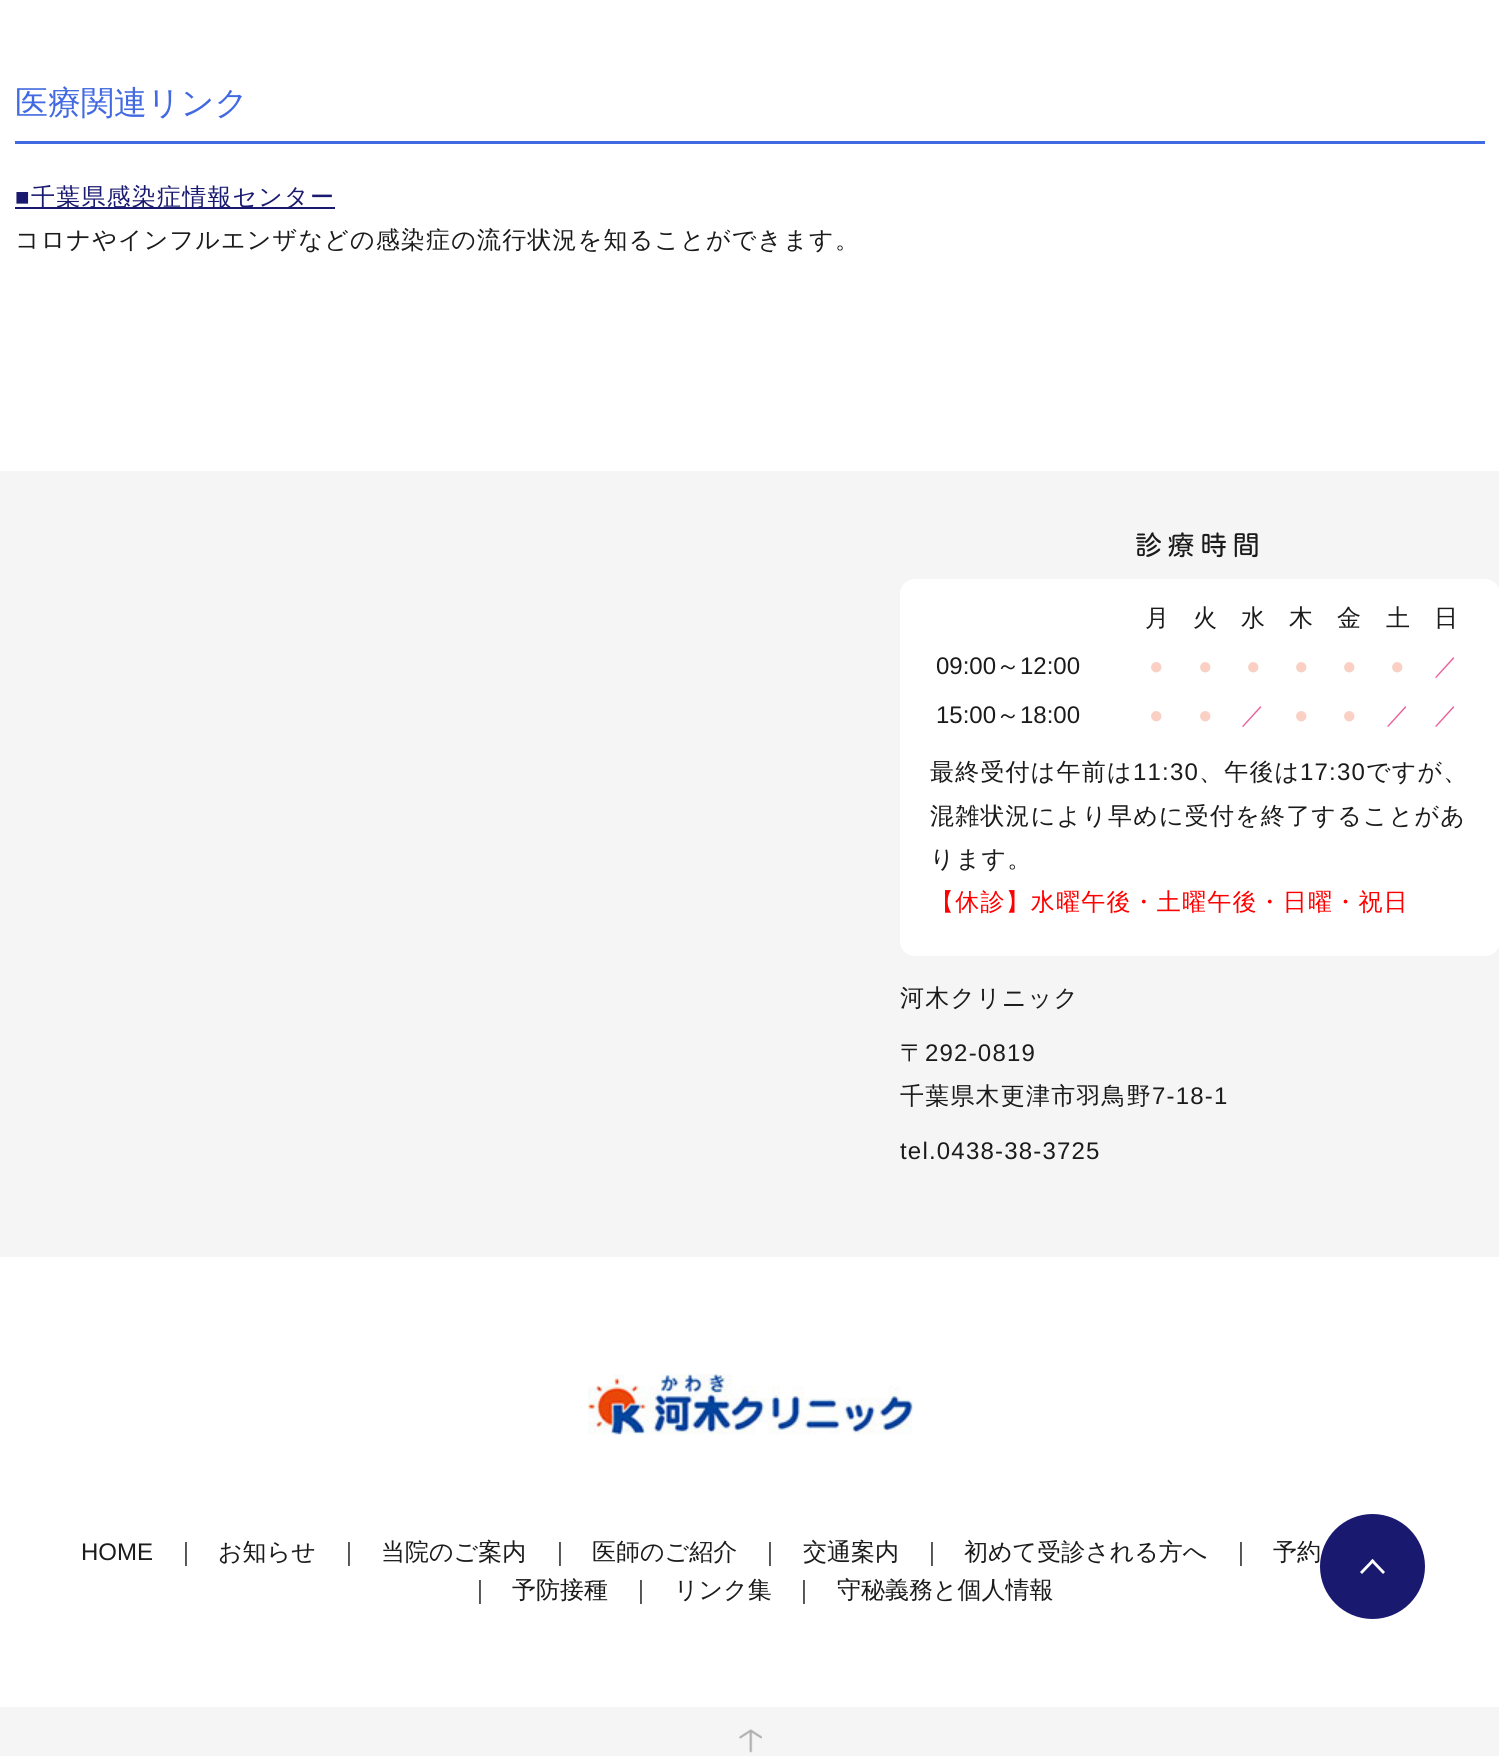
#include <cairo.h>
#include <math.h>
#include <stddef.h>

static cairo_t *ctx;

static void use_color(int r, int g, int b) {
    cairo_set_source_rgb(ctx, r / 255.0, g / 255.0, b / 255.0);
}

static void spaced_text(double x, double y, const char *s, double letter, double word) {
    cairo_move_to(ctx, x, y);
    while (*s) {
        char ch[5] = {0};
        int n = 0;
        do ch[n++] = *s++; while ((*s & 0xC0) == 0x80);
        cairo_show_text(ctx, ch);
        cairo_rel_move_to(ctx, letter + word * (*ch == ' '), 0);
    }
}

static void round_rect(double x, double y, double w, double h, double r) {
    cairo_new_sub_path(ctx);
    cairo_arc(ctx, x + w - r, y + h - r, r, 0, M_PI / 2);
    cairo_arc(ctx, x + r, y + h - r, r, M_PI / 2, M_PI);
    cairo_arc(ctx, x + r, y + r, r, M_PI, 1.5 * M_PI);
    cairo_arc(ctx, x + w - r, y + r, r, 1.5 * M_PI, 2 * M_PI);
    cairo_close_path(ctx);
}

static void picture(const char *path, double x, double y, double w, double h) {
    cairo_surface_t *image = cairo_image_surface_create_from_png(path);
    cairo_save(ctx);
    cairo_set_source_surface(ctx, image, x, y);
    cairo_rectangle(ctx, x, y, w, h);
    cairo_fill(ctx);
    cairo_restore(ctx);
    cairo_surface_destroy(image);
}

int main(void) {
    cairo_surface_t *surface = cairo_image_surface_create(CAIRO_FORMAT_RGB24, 1499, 1756);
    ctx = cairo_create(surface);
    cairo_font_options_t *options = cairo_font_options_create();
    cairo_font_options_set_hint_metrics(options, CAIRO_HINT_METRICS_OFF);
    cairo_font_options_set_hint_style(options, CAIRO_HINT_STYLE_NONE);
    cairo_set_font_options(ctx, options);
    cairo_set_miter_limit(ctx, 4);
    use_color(255, 255, 255);
    cairo_paint(ctx);
    cairo_select_font_face(ctx, "WenQuanYi Zen Hei Medium", CAIRO_FONT_SLANT_NORMAL, CAIRO_FONT_WEIGHT_NORMAL);
    cairo_set_font_size(ctx, 33);
    use_color(65, 105, 225);
    cairo_move_to(ctx, 15, 114);
    cairo_show_text(ctx, "医療関連リンク");
    cairo_rectangle(ctx, 15, 141, 1470, 3);
    cairo_fill(ctx);
    cairo_select_font_face(ctx, "Liberation Sans", CAIRO_FONT_SLANT_NORMAL, CAIRO_FONT_WEIGHT_NORMAL);
    cairo_set_font_size(ctx, 24);
    use_color(25, 25, 112);
    spaced_text(15, 205, "■", 1.2, 0);
    cairo_rectangle(ctx, 15, 207, 320, 2);
    cairo_fill(ctx);
    cairo_select_font_face(ctx, "WenQuanYi Zen Hei Medium", CAIRO_FONT_SLANT_NORMAL, CAIRO_FONT_WEIGHT_NORMAL);
    spaced_text(31, 205, "千葉県感染症情報センター", 1.2, 0);
    use_color(27, 27, 27);
    spaced_text(15, 248, "コロナやインフルエンザなどの感染症の流行状況を知ることができます。", 1.2, 0);
    use_color(245, 245, 245);
    cairo_rectangle(ctx, 0, 471, 1499, 786);
    cairo_fill(ctx);
    cairo_select_font_face(ctx, "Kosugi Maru", CAIRO_FONT_SLANT_NORMAL, CAIRO_FONT_WEIGHT_NORMAL);
    cairo_set_font_size(ctx, 27);
    use_color(27, 27, 27);
    spaced_text(1135, 555, "診療時間", 5.5, 0);
    use_color(255, 255, 255);
    round_rect(900, 579, 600, 377, 15);
    cairo_fill(ctx);
    cairo_select_font_face(ctx, "WenQuanYi Zen Hei Medium", CAIRO_FONT_SLANT_NORMAL, CAIRO_FONT_WEIGHT_NORMAL);
    cairo_set_font_size(ctx, 24);
    use_color(27, 27, 27);
    cairo_move_to(ctx, 1145, 626);
    cairo_show_text(ctx, "月");
    cairo_move_to(ctx, 1193, 626);
    cairo_show_text(ctx, "火");
    cairo_move_to(ctx, 1241, 626);
    cairo_show_text(ctx, "水");
    cairo_move_to(ctx, 1289, 626);
    cairo_show_text(ctx, "木");
    cairo_move_to(ctx, 1337, 626);
    cairo_show_text(ctx, "金");
    cairo_move_to(ctx, 1386, 626);
    cairo_show_text(ctx, "土");
    cairo_move_to(ctx, 1434, 626);
    cairo_show_text(ctx, "日");
    cairo_select_font_face(ctx, "Liberation Sans", CAIRO_FONT_SLANT_NORMAL, CAIRO_FONT_WEIGHT_NORMAL);
    cairo_move_to(ctx, 936, 674);
    cairo_show_text(ctx, "09:00");
    cairo_select_font_face(ctx, "WenQuanYi Zen Hei Medium", CAIRO_FONT_SLANT_NORMAL, CAIRO_FONT_WEIGHT_NORMAL);
    cairo_move_to(ctx, 996, 674);
    cairo_show_text(ctx, "～");
    cairo_select_font_face(ctx, "Liberation Sans", CAIRO_FONT_SLANT_NORMAL, CAIRO_FONT_WEIGHT_NORMAL);
    cairo_move_to(ctx, 1020, 674);
    cairo_show_text(ctx, "12:00");
    use_color(249, 208, 195);
    cairo_move_to(ctx, 1149, 674);
    cairo_show_text(ctx, "●");
    cairo_move_to(ctx, 1198, 674);
    cairo_show_text(ctx, "●");
    cairo_move_to(ctx, 1246, 674);
    cairo_show_text(ctx, "●");
    cairo_move_to(ctx, 1294, 674);
    cairo_show_text(ctx, "●");
    cairo_move_to(ctx, 1342, 674);
    cairo_show_text(ctx, "●");
    cairo_move_to(ctx, 1390, 674);
    cairo_show_text(ctx, "●");
    cairo_select_font_face(ctx, "WenQuanYi Zen Hei Medium", CAIRO_FONT_SLANT_NORMAL, CAIRO_FONT_WEIGHT_NORMAL);
    use_color(234, 96, 153);
    cairo_move_to(ctx, 1434, 674);
    cairo_show_text(ctx, "／");
    cairo_select_font_face(ctx, "Liberation Sans", CAIRO_FONT_SLANT_NORMAL, CAIRO_FONT_WEIGHT_NORMAL);
    use_color(27, 27, 27);
    cairo_move_to(ctx, 936, 723);
    cairo_show_text(ctx, "15:00");
    cairo_select_font_face(ctx, "WenQuanYi Zen Hei Medium", CAIRO_FONT_SLANT_NORMAL, CAIRO_FONT_WEIGHT_NORMAL);
    cairo_move_to(ctx, 996, 723);
    cairo_show_text(ctx, "～");
    cairo_select_font_face(ctx, "Liberation Sans", CAIRO_FONT_SLANT_NORMAL, CAIRO_FONT_WEIGHT_NORMAL);
    cairo_move_to(ctx, 1020, 723);
    cairo_show_text(ctx, "18:00");
    use_color(249, 208, 195);
    cairo_move_to(ctx, 1149, 723);
    cairo_show_text(ctx, "●");
    cairo_move_to(ctx, 1198, 723);
    cairo_show_text(ctx, "●");
    cairo_select_font_face(ctx, "WenQuanYi Zen Hei Medium", CAIRO_FONT_SLANT_NORMAL, CAIRO_FONT_WEIGHT_NORMAL);
    use_color(234, 96, 153);
    cairo_move_to(ctx, 1241, 723);
    cairo_show_text(ctx, "／");
    cairo_select_font_face(ctx, "Liberation Sans", CAIRO_FONT_SLANT_NORMAL, CAIRO_FONT_WEIGHT_NORMAL);
    use_color(249, 208, 195);
    cairo_move_to(ctx, 1294, 723);
    cairo_show_text(ctx, "●");
    cairo_move_to(ctx, 1342, 723);
    cairo_show_text(ctx, "●");
    cairo_select_font_face(ctx, "WenQuanYi Zen Hei Medium", CAIRO_FONT_SLANT_NORMAL, CAIRO_FONT_WEIGHT_NORMAL);
    use_color(234, 96, 153);
    cairo_move_to(ctx, 1386, 723);
    cairo_show_text(ctx, "／");
    cairo_move_to(ctx, 1434, 723);
    cairo_show_text(ctx, "／");
    use_color(27, 27, 27);
    spaced_text(930, 780, "最終受付は午前は", 1.2, 0);
    cairo_select_font_face(ctx, "Liberation Sans", CAIRO_FONT_SLANT_NORMAL, CAIRO_FONT_WEIGHT_NORMAL);
    spaced_text(1133, 780, "11:30", 1.2, 0);
    cairo_select_font_face(ctx, "WenQuanYi Zen Hei Medium", CAIRO_FONT_SLANT_NORMAL, CAIRO_FONT_WEIGHT_NORMAL);
    spaced_text(1199, 780, "、午後は", 1.2, 0);
    cairo_select_font_face(ctx, "Liberation Sans", CAIRO_FONT_SLANT_NORMAL, CAIRO_FONT_WEIGHT_NORMAL);
    spaced_text(1300, 780, "17:30", 1.2, 0);
    cairo_select_font_face(ctx, "WenQuanYi Zen Hei Medium", CAIRO_FONT_SLANT_NORMAL, CAIRO_FONT_WEIGHT_NORMAL);
    spaced_text(1366, 780, "ですが、", 1.2, 0);
    spaced_text(930, 824, "混雑状況により早めに受付を終了することがあ", 1.2, 0);
    spaced_text(930, 867, "ります。", 1.2, 0);
    use_color(255, 0, 0);
    spaced_text(930, 910, "【休診】水曜午後・土曜午後・日曜・祝日", 1.2, 0);
    use_color(27, 27, 27);
    spaced_text(900, 1006, "河木クリニック", 1.2, 0);
    spaced_text(900, 1061, "〒", 1.2, 0);
    cairo_select_font_face(ctx, "Liberation Sans", CAIRO_FONT_SLANT_NORMAL, CAIRO_FONT_WEIGHT_NORMAL);
    spaced_text(925, 1061, "292-0819", 1.2, 0);
    cairo_select_font_face(ctx, "WenQuanYi Zen Hei Medium", CAIRO_FONT_SLANT_NORMAL, CAIRO_FONT_WEIGHT_NORMAL);
    spaced_text(900, 1104, "千葉県木更津市羽鳥野", 1.2, 0);
    cairo_select_font_face(ctx, "Liberation Sans", CAIRO_FONT_SLANT_NORMAL, CAIRO_FONT_WEIGHT_NORMAL);
    spaced_text(1152, 1104, "7-18-1", 1.2, 0);
    spaced_text(900, 1159, "tel.0438-38-3725", 1.2, 0);
    picture("img1.png", 588, 1373, 325, 62);
    cairo_move_to(ctx, 81, 1560);
    cairo_show_text(ctx, "HOME");
    cairo_select_font_face(ctx, "WenQuanYi Zen Hei Medium", CAIRO_FONT_SLANT_NORMAL, CAIRO_FONT_WEIGHT_NORMAL);
    cairo_move_to(ctx, 174, 1560);
    cairo_show_text(ctx, "｜");
    cairo_move_to(ctx, 218, 1560);
    cairo_show_text(ctx, "お知らせ");
    cairo_move_to(ctx, 337, 1560);
    cairo_show_text(ctx, "｜");
    cairo_move_to(ctx, 381, 1560);
    cairo_show_text(ctx, "当院のご案内");
    cairo_move_to(ctx, 548, 1560);
    cairo_show_text(ctx, "｜");
    cairo_move_to(ctx, 592, 1560);
    cairo_show_text(ctx, "医師のご紹介");
    cairo_move_to(ctx, 758, 1560);
    cairo_show_text(ctx, "｜");
    cairo_move_to(ctx, 803, 1560);
    cairo_show_text(ctx, "交通案内");
    cairo_move_to(ctx, 920, 1560);
    cairo_show_text(ctx, "｜");
    cairo_move_to(ctx, 964, 1560);
    cairo_show_text(ctx, "初めて受診される方へ");
    cairo_move_to(ctx, 1229, 1560);
    cairo_show_text(ctx, "｜");
    cairo_move_to(ctx, 1273, 1560);
    cairo_show_text(ctx, "予約");
    cairo_move_to(ctx, 468, 1598);
    cairo_show_text(ctx, "｜");
    cairo_move_to(ctx, 512, 1598);
    cairo_show_text(ctx, "予防接種");
    cairo_move_to(ctx, 629, 1598);
    cairo_show_text(ctx, "｜");
    cairo_move_to(ctx, 674, 1598);
    cairo_show_text(ctx, "リンク集");
    cairo_move_to(ctx, 792, 1598);
    cairo_show_text(ctx, "｜");
    cairo_move_to(ctx, 837, 1598);
    cairo_show_text(ctx, "守秘義務と個人情報");
    use_color(25, 25, 112);
    cairo_new_path(ctx);
    cairo_arc(ctx, 1372.5, 1566.5, 52.5, 0, 2 * M_PI);
    cairo_fill(ctx);
    use_color(255, 255, 255);
    cairo_new_path(ctx);
    cairo_move_to(ctx, 1372.5, 1559);
    cairo_line_to(ctx, 1385, 1572);
    cairo_line_to(ctx, 1383, 1574);
    cairo_line_to(ctx, 1370.5, 1561);
    cairo_close_path(ctx);
    cairo_fill(ctx);
    cairo_new_path(ctx);
    cairo_move_to(ctx, 1372.5, 1559);
    cairo_line_to(ctx, 1374.5, 1561);
    cairo_line_to(ctx, 1362, 1574);
    cairo_line_to(ctx, 1360, 1572);
    cairo_close_path(ctx);
    cairo_fill(ctx);
    use_color(245, 245, 245);
    cairo_rectangle(ctx, 0, 1707, 1499, 49);
    cairo_fill(ctx);
    picture("img2.png", 739, 1729, 23, 24);
    cairo_surface_write_to_png(surface, "result.png");
    cairo_font_options_destroy(options);
    cairo_destroy(ctx);
    cairo_surface_destroy(surface);
    return 0;
}
